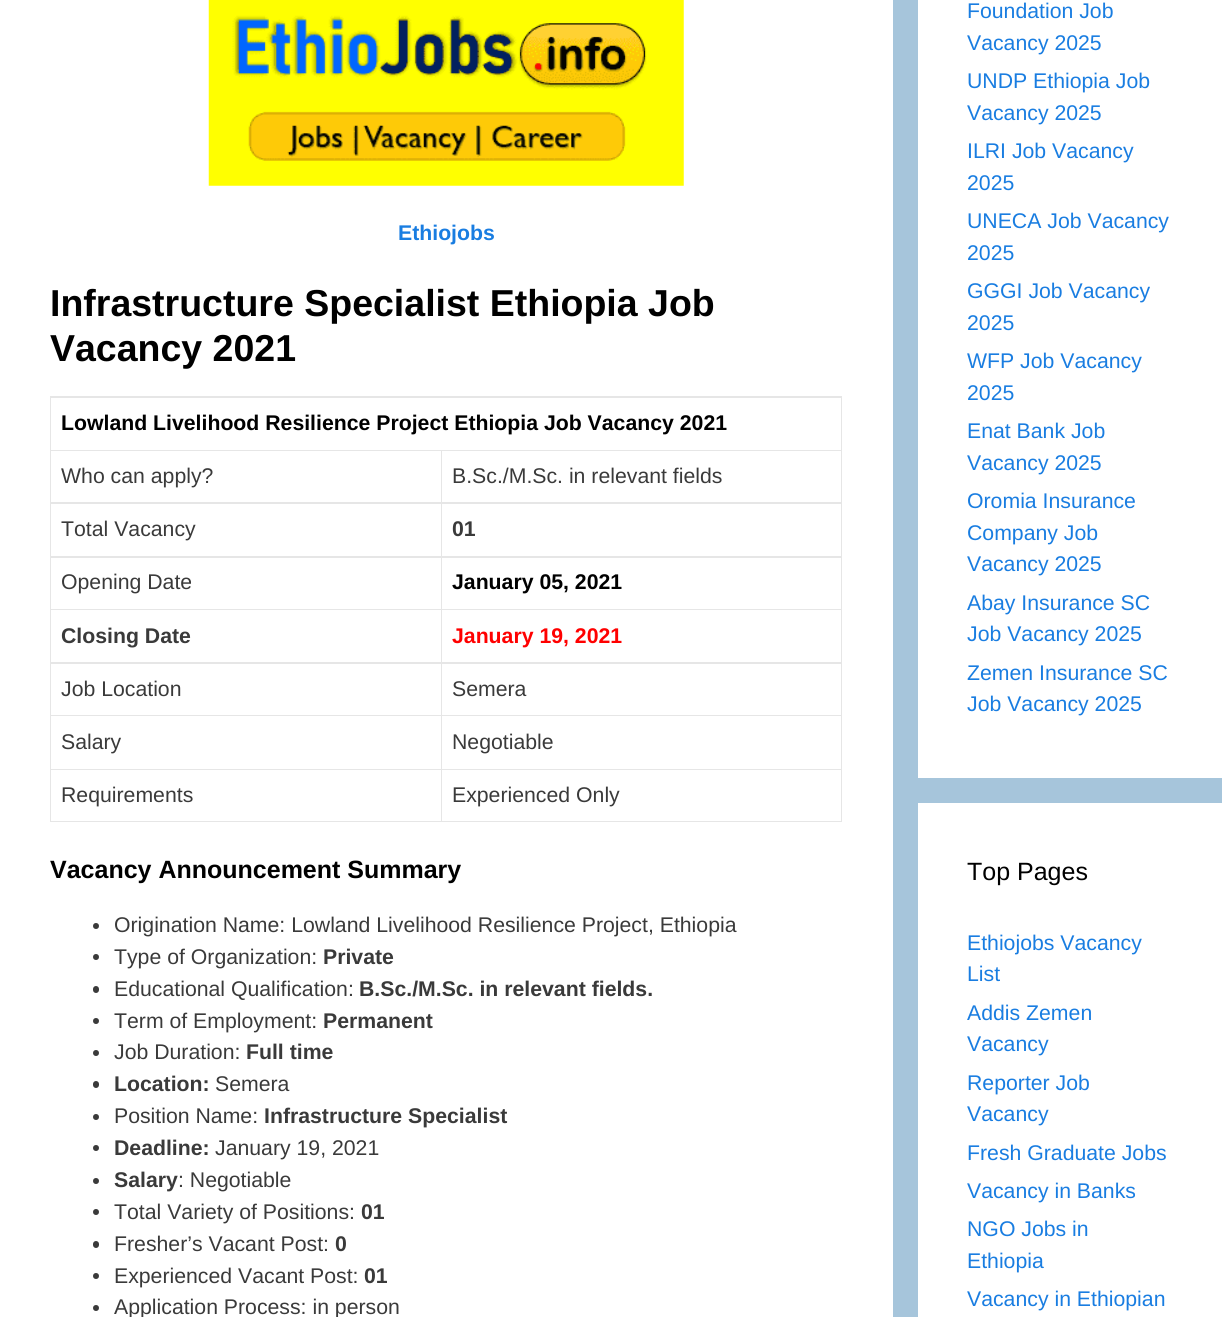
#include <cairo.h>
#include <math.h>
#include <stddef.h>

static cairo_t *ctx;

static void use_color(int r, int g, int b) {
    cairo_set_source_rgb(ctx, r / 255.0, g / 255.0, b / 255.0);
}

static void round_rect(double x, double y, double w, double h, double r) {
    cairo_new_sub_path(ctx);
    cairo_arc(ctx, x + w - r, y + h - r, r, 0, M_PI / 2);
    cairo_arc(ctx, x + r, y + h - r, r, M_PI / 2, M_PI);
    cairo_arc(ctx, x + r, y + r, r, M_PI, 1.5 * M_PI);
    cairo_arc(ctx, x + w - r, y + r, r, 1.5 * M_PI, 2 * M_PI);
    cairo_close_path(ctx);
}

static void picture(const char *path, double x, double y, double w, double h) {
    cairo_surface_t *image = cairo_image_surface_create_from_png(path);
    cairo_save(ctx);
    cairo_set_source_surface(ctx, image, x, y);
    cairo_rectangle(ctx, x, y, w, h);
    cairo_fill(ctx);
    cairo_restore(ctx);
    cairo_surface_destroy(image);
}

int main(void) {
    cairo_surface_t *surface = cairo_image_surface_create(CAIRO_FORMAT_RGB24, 1222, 1317);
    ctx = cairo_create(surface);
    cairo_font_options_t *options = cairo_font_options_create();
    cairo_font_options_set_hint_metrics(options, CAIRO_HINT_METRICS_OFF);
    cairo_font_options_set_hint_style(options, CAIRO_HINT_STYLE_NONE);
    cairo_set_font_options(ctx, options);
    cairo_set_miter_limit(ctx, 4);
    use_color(166, 197, 219);
    cairo_paint(ctx);
    use_color(255, 255, 255);
    cairo_rectangle(ctx, 0, 0, 893, 1317);
    cairo_fill(ctx);
    picture("img1.png", 208, 0, 476, 186);
    cairo_select_font_face(ctx, "Liberation Sans", CAIRO_FONT_SLANT_NORMAL, CAIRO_FONT_WEIGHT_BOLD);
    cairo_set_font_size(ctx, 21.25);
    use_color(25, 125, 225);
    cairo_move_to(ctx, 398, 240);
    cairo_show_text(ctx, "Ethiojobs");
    cairo_set_font_size(ctx, 37.5);
    use_color(0, 0, 0);
    cairo_move_to(ctx, 50, 316);
    cairo_show_text(ctx, "Infrastructure Specialist Ethiopia Job");
    cairo_move_to(ctx, 50, 361);
    cairo_show_text(ctx, "Vacancy 2021");
    use_color(230, 230, 230);
    cairo_new_path(ctx);
    cairo_move_to(ctx, 50, 396);
    cairo_line_to(ctx, 842, 396);
    cairo_line_to(ctx, 842, 398);
    cairo_line_to(ctx, 51, 398);
    cairo_close_path(ctx);
    cairo_fill(ctx);
    cairo_set_source_rgba(ctx, 0, 0, 0, 0.1);
    cairo_new_path(ctx);
    cairo_move_to(ctx, 50, 822);
    cairo_line_to(ctx, 50, 396);
    cairo_line_to(ctx, 51, 398);
    cairo_line_to(ctx, 51, 822);
    cairo_close_path(ctx);
    cairo_fill(ctx);
    use_color(230, 230, 230);
    cairo_new_path(ctx);
    cairo_move_to(ctx, 842, 398);
    cairo_line_to(ctx, 842, 451);
    cairo_line_to(ctx, 841, 450);
    cairo_line_to(ctx, 841, 398);
    cairo_close_path(ctx);
    cairo_fill(ctx);
    cairo_set_source_rgba(ctx, 0, 0, 0, 0.1);
    cairo_new_path(ctx);
    cairo_move_to(ctx, 842, 451);
    cairo_line_to(ctx, 51, 451);
    cairo_line_to(ctx, 51, 450);
    cairo_line_to(ctx, 841, 450);
    cairo_close_path(ctx);
    cairo_fill(ctx);
    cairo_set_font_size(ctx, 21.25);
    use_color(0, 0, 0);
    cairo_move_to(ctx, 61, 430);
    cairo_show_text(ctx, "Lowland Livelihood Resilience Project Ethiopia Job Vacancy 2021");
    use_color(230, 230, 230);
    cairo_new_path(ctx);
    cairo_move_to(ctx, 442, 451);
    cairo_line_to(ctx, 442, 504);
    cairo_line_to(ctx, 441, 502);
    cairo_line_to(ctx, 441, 451);
    cairo_close_path(ctx);
    cairo_fill(ctx);
    cairo_set_source_rgba(ctx, 0, 0, 0, 0.1);
    cairo_new_path(ctx);
    cairo_move_to(ctx, 442, 504);
    cairo_line_to(ctx, 51, 504);
    cairo_line_to(ctx, 51, 502);
    cairo_line_to(ctx, 441, 502);
    cairo_close_path(ctx);
    cairo_fill(ctx);
    cairo_select_font_face(ctx, "Liberation Sans", CAIRO_FONT_SLANT_NORMAL, CAIRO_FONT_WEIGHT_NORMAL);
    use_color(58, 58, 58);
    cairo_move_to(ctx, 61, 483);
    cairo_show_text(ctx, "Who can apply?");
    use_color(230, 230, 230);
    cairo_new_path(ctx);
    cairo_move_to(ctx, 842, 451);
    cairo_line_to(ctx, 842, 504);
    cairo_line_to(ctx, 841, 502);
    cairo_line_to(ctx, 841, 451);
    cairo_close_path(ctx);
    cairo_fill(ctx);
    cairo_set_source_rgba(ctx, 0, 0, 0, 0.1);
    cairo_new_path(ctx);
    cairo_move_to(ctx, 842, 504);
    cairo_line_to(ctx, 442, 504);
    cairo_line_to(ctx, 442, 502);
    cairo_line_to(ctx, 841, 502);
    cairo_close_path(ctx);
    cairo_fill(ctx);
    use_color(58, 58, 58);
    cairo_move_to(ctx, 452, 483);
    cairo_show_text(ctx, "B.Sc./M.Sc. in relevant fields");
    use_color(230, 230, 230);
    cairo_new_path(ctx);
    cairo_move_to(ctx, 442, 504);
    cairo_line_to(ctx, 442, 558);
    cairo_line_to(ctx, 441, 556);
    cairo_line_to(ctx, 441, 504);
    cairo_close_path(ctx);
    cairo_fill(ctx);
    cairo_set_source_rgba(ctx, 0, 0, 0, 0.1);
    cairo_new_path(ctx);
    cairo_move_to(ctx, 442, 558);
    cairo_line_to(ctx, 51, 558);
    cairo_line_to(ctx, 51, 556);
    cairo_line_to(ctx, 441, 556);
    cairo_close_path(ctx);
    cairo_fill(ctx);
    use_color(58, 58, 58);
    cairo_move_to(ctx, 61, 536);
    cairo_show_text(ctx, "Total Vacancy");
    use_color(230, 230, 230);
    cairo_new_path(ctx);
    cairo_move_to(ctx, 842, 504);
    cairo_line_to(ctx, 842, 558);
    cairo_line_to(ctx, 841, 556);
    cairo_line_to(ctx, 841, 504);
    cairo_close_path(ctx);
    cairo_fill(ctx);
    cairo_set_source_rgba(ctx, 0, 0, 0, 0.1);
    cairo_new_path(ctx);
    cairo_move_to(ctx, 842, 558);
    cairo_line_to(ctx, 442, 558);
    cairo_line_to(ctx, 442, 556);
    cairo_line_to(ctx, 841, 556);
    cairo_close_path(ctx);
    cairo_fill(ctx);
    cairo_select_font_face(ctx, "Liberation Sans", CAIRO_FONT_SLANT_NORMAL, CAIRO_FONT_WEIGHT_BOLD);
    use_color(58, 58, 58);
    cairo_move_to(ctx, 452, 536);
    cairo_show_text(ctx, "01");
    use_color(230, 230, 230);
    cairo_new_path(ctx);
    cairo_move_to(ctx, 442, 558);
    cairo_line_to(ctx, 442, 610);
    cairo_line_to(ctx, 441, 609);
    cairo_line_to(ctx, 441, 558);
    cairo_close_path(ctx);
    cairo_fill(ctx);
    cairo_set_source_rgba(ctx, 0, 0, 0, 0.1);
    cairo_new_path(ctx);
    cairo_move_to(ctx, 442, 610);
    cairo_line_to(ctx, 51, 610);
    cairo_line_to(ctx, 51, 609);
    cairo_line_to(ctx, 441, 609);
    cairo_close_path(ctx);
    cairo_fill(ctx);
    cairo_select_font_face(ctx, "Liberation Sans", CAIRO_FONT_SLANT_NORMAL, CAIRO_FONT_WEIGHT_NORMAL);
    use_color(58, 58, 58);
    cairo_move_to(ctx, 61, 589);
    cairo_show_text(ctx, "Opening Date");
    use_color(230, 230, 230);
    cairo_new_path(ctx);
    cairo_move_to(ctx, 842, 558);
    cairo_line_to(ctx, 842, 610);
    cairo_line_to(ctx, 841, 609);
    cairo_line_to(ctx, 841, 558);
    cairo_close_path(ctx);
    cairo_fill(ctx);
    cairo_set_source_rgba(ctx, 0, 0, 0, 0.1);
    cairo_new_path(ctx);
    cairo_move_to(ctx, 842, 610);
    cairo_line_to(ctx, 442, 610);
    cairo_line_to(ctx, 442, 609);
    cairo_line_to(ctx, 841, 609);
    cairo_close_path(ctx);
    cairo_fill(ctx);
    cairo_select_font_face(ctx, "Liberation Sans", CAIRO_FONT_SLANT_NORMAL, CAIRO_FONT_WEIGHT_BOLD);
    use_color(0, 0, 0);
    cairo_move_to(ctx, 452, 589);
    cairo_show_text(ctx, "January 05, 2021");
    use_color(230, 230, 230);
    cairo_new_path(ctx);
    cairo_move_to(ctx, 442, 610);
    cairo_line_to(ctx, 442, 664);
    cairo_line_to(ctx, 441, 662);
    cairo_line_to(ctx, 441, 610);
    cairo_close_path(ctx);
    cairo_fill(ctx);
    cairo_set_source_rgba(ctx, 0, 0, 0, 0.1);
    cairo_new_path(ctx);
    cairo_move_to(ctx, 442, 664);
    cairo_line_to(ctx, 51, 664);
    cairo_line_to(ctx, 51, 662);
    cairo_line_to(ctx, 441, 662);
    cairo_close_path(ctx);
    cairo_fill(ctx);
    use_color(58, 58, 58);
    cairo_move_to(ctx, 61, 643);
    cairo_show_text(ctx, "Closing Date");
    use_color(230, 230, 230);
    cairo_new_path(ctx);
    cairo_move_to(ctx, 842, 610);
    cairo_line_to(ctx, 842, 664);
    cairo_line_to(ctx, 841, 662);
    cairo_line_to(ctx, 841, 610);
    cairo_close_path(ctx);
    cairo_fill(ctx);
    cairo_set_source_rgba(ctx, 0, 0, 0, 0.1);
    cairo_new_path(ctx);
    cairo_move_to(ctx, 842, 664);
    cairo_line_to(ctx, 442, 664);
    cairo_line_to(ctx, 442, 662);
    cairo_line_to(ctx, 841, 662);
    cairo_close_path(ctx);
    cairo_fill(ctx);
    use_color(255, 0, 0);
    cairo_move_to(ctx, 452, 643);
    cairo_show_text(ctx, "January 19, 2021");
    use_color(230, 230, 230);
    cairo_new_path(ctx);
    cairo_move_to(ctx, 442, 664);
    cairo_line_to(ctx, 442, 716);
    cairo_line_to(ctx, 441, 715);
    cairo_line_to(ctx, 441, 664);
    cairo_close_path(ctx);
    cairo_fill(ctx);
    cairo_set_source_rgba(ctx, 0, 0, 0, 0.1);
    cairo_new_path(ctx);
    cairo_move_to(ctx, 442, 716);
    cairo_line_to(ctx, 51, 716);
    cairo_line_to(ctx, 51, 715);
    cairo_line_to(ctx, 441, 715);
    cairo_close_path(ctx);
    cairo_fill(ctx);
    cairo_select_font_face(ctx, "Liberation Sans", CAIRO_FONT_SLANT_NORMAL, CAIRO_FONT_WEIGHT_NORMAL);
    use_color(58, 58, 58);
    cairo_move_to(ctx, 61, 696);
    cairo_show_text(ctx, "Job Location");
    use_color(230, 230, 230);
    cairo_new_path(ctx);
    cairo_move_to(ctx, 842, 664);
    cairo_line_to(ctx, 842, 716);
    cairo_line_to(ctx, 841, 715);
    cairo_line_to(ctx, 841, 664);
    cairo_close_path(ctx);
    cairo_fill(ctx);
    cairo_set_source_rgba(ctx, 0, 0, 0, 0.1);
    cairo_new_path(ctx);
    cairo_move_to(ctx, 842, 716);
    cairo_line_to(ctx, 442, 716);
    cairo_line_to(ctx, 442, 715);
    cairo_line_to(ctx, 841, 715);
    cairo_close_path(ctx);
    cairo_fill(ctx);
    use_color(58, 58, 58);
    cairo_move_to(ctx, 452, 696);
    cairo_show_text(ctx, "Semera");
    use_color(230, 230, 230);
    cairo_new_path(ctx);
    cairo_move_to(ctx, 442, 716);
    cairo_line_to(ctx, 442, 770);
    cairo_line_to(ctx, 441, 769);
    cairo_line_to(ctx, 441, 716);
    cairo_close_path(ctx);
    cairo_fill(ctx);
    cairo_set_source_rgba(ctx, 0, 0, 0, 0.1);
    cairo_new_path(ctx);
    cairo_move_to(ctx, 442, 770);
    cairo_line_to(ctx, 51, 770);
    cairo_line_to(ctx, 51, 769);
    cairo_line_to(ctx, 441, 769);
    cairo_close_path(ctx);
    cairo_fill(ctx);
    use_color(58, 58, 58);
    cairo_move_to(ctx, 61, 749);
    cairo_show_text(ctx, "Salary");
    use_color(230, 230, 230);
    cairo_new_path(ctx);
    cairo_move_to(ctx, 842, 716);
    cairo_line_to(ctx, 842, 770);
    cairo_line_to(ctx, 841, 769);
    cairo_line_to(ctx, 841, 716);
    cairo_close_path(ctx);
    cairo_fill(ctx);
    cairo_set_source_rgba(ctx, 0, 0, 0, 0.1);
    cairo_new_path(ctx);
    cairo_move_to(ctx, 842, 770);
    cairo_line_to(ctx, 442, 770);
    cairo_line_to(ctx, 442, 769);
    cairo_line_to(ctx, 841, 769);
    cairo_close_path(ctx);
    cairo_fill(ctx);
    use_color(58, 58, 58);
    cairo_move_to(ctx, 452, 749);
    cairo_show_text(ctx, "Negotiable");
    use_color(230, 230, 230);
    cairo_new_path(ctx);
    cairo_move_to(ctx, 442, 770);
    cairo_line_to(ctx, 442, 822);
    cairo_line_to(ctx, 441, 821);
    cairo_line_to(ctx, 441, 770);
    cairo_close_path(ctx);
    cairo_fill(ctx);
    cairo_set_source_rgba(ctx, 0, 0, 0, 0.1);
    cairo_new_path(ctx);
    cairo_move_to(ctx, 442, 822);
    cairo_line_to(ctx, 51, 822);
    cairo_line_to(ctx, 51, 821);
    cairo_line_to(ctx, 441, 821);
    cairo_close_path(ctx);
    cairo_fill(ctx);
    use_color(58, 58, 58);
    cairo_move_to(ctx, 61, 802);
    cairo_show_text(ctx, "Requirements");
    use_color(230, 230, 230);
    cairo_new_path(ctx);
    cairo_move_to(ctx, 842, 770);
    cairo_line_to(ctx, 842, 822);
    cairo_line_to(ctx, 841, 821);
    cairo_line_to(ctx, 841, 770);
    cairo_close_path(ctx);
    cairo_fill(ctx);
    cairo_set_source_rgba(ctx, 0, 0, 0, 0.1);
    cairo_new_path(ctx);
    cairo_move_to(ctx, 842, 822);
    cairo_line_to(ctx, 442, 822);
    cairo_line_to(ctx, 442, 821);
    cairo_line_to(ctx, 841, 821);
    cairo_close_path(ctx);
    cairo_fill(ctx);
    use_color(58, 58, 58);
    cairo_move_to(ctx, 452, 802);
    cairo_show_text(ctx, "Experienced Only");
    cairo_select_font_face(ctx, "Liberation Sans", CAIRO_FONT_SLANT_NORMAL, CAIRO_FONT_WEIGHT_BOLD);
    cairo_set_font_size(ctx, 25);
    use_color(0, 0, 0);
    cairo_move_to(ctx, 50, 878);
    cairo_show_text(ctx, "Vacancy Announcement Summary");
    use_color(58, 58, 58);
    cairo_new_path(ctx);
    cairo_arc(ctx, 96, 926, 3, 0, 2 * M_PI);
    cairo_fill(ctx);
    cairo_select_font_face(ctx, "Liberation Sans", CAIRO_FONT_SLANT_NORMAL, CAIRO_FONT_WEIGHT_NORMAL);
    cairo_set_font_size(ctx, 21.25);
    cairo_move_to(ctx, 114, 932);
    cairo_show_text(ctx, "Origination Name: Lowland Livelihood Resilience Project, Ethiopia");
    cairo_new_path(ctx);
    cairo_arc(ctx, 96, 957, 3, 0, 2 * M_PI);
    cairo_fill(ctx);
    cairo_move_to(ctx, 114, 964);
    cairo_show_text(ctx, "Type of Organization:");
    cairo_select_font_face(ctx, "Liberation Sans", CAIRO_FONT_SLANT_NORMAL, CAIRO_FONT_WEIGHT_BOLD);
    cairo_move_to(ctx, 323, 964);
    cairo_show_text(ctx, "Private");
    round_rect(93, 986, 6, 7, 3);
    cairo_fill(ctx);
    cairo_select_font_face(ctx, "Liberation Sans", CAIRO_FONT_SLANT_NORMAL, CAIRO_FONT_WEIGHT_NORMAL);
    cairo_move_to(ctx, 114, 996);
    cairo_show_text(ctx, "Educational Qualification:");
    cairo_select_font_face(ctx, "Liberation Sans", CAIRO_FONT_SLANT_NORMAL, CAIRO_FONT_WEIGHT_BOLD);
    cairo_move_to(ctx, 359, 996);
    cairo_show_text(ctx, "B.Sc./M.Sc. in relevant fields.");
    cairo_new_path(ctx);
    cairo_arc(ctx, 96, 1021, 3, 0, 2 * M_PI);
    cairo_fill(ctx);
    cairo_select_font_face(ctx, "Liberation Sans", CAIRO_FONT_SLANT_NORMAL, CAIRO_FONT_WEIGHT_NORMAL);
    cairo_move_to(ctx, 114, 1028);
    cairo_show_text(ctx, "Term of Employment:");
    cairo_select_font_face(ctx, "Liberation Sans", CAIRO_FONT_SLANT_NORMAL, CAIRO_FONT_WEIGHT_BOLD);
    cairo_move_to(ctx, 323, 1028);
    cairo_show_text(ctx, "Permanent");
    cairo_new_path(ctx);
    cairo_arc(ctx, 96, 1053, 3, 0, 2 * M_PI);
    cairo_fill(ctx);
    cairo_select_font_face(ctx, "Liberation Sans", CAIRO_FONT_SLANT_NORMAL, CAIRO_FONT_WEIGHT_NORMAL);
    cairo_move_to(ctx, 114, 1059);
    cairo_show_text(ctx, "Job Duration:");
    cairo_select_font_face(ctx, "Liberation Sans", CAIRO_FONT_SLANT_NORMAL, CAIRO_FONT_WEIGHT_BOLD);
    cairo_move_to(ctx, 246, 1059);
    cairo_show_text(ctx, "Full time");
    round_rect(93, 1081, 6, 7, 3);
    cairo_fill(ctx);
    cairo_move_to(ctx, 114, 1091);
    cairo_show_text(ctx, "Location:");
    cairo_select_font_face(ctx, "Liberation Sans", CAIRO_FONT_SLANT_NORMAL, CAIRO_FONT_WEIGHT_NORMAL);
    cairo_move_to(ctx, 215, 1091);
    cairo_show_text(ctx, "Semera");
    cairo_new_path(ctx);
    cairo_arc(ctx, 96, 1117, 3, 0, 2 * M_PI);
    cairo_fill(ctx);
    cairo_move_to(ctx, 114, 1123);
    cairo_show_text(ctx, "Position Name:");
    cairo_select_font_face(ctx, "Liberation Sans", CAIRO_FONT_SLANT_NORMAL, CAIRO_FONT_WEIGHT_BOLD);
    cairo_move_to(ctx, 264, 1123);
    cairo_show_text(ctx, "Infrastructure Specialist");
    cairo_new_path(ctx);
    cairo_arc(ctx, 96, 1148, 3, 0, 2 * M_PI);
    cairo_fill(ctx);
    cairo_move_to(ctx, 114, 1155);
    cairo_show_text(ctx, "Deadline:");
    cairo_select_font_face(ctx, "Liberation Sans", CAIRO_FONT_SLANT_NORMAL, CAIRO_FONT_WEIGHT_NORMAL);
    cairo_move_to(ctx, 215, 1155);
    cairo_show_text(ctx, "January 19, 2021");
    cairo_new_path(ctx);
    cairo_arc(ctx, 96, 1181, 3, 0, 2 * M_PI);
    cairo_fill(ctx);
    cairo_select_font_face(ctx, "Liberation Sans", CAIRO_FONT_SLANT_NORMAL, CAIRO_FONT_WEIGHT_BOLD);
    cairo_move_to(ctx, 114, 1187);
    cairo_show_text(ctx, "Salary");
    cairo_select_font_face(ctx, "Liberation Sans", CAIRO_FONT_SLANT_NORMAL, CAIRO_FONT_WEIGHT_NORMAL);
    cairo_move_to(ctx, 178, 1187);
    cairo_show_text(ctx, ": Negotiable");
    cairo_new_path(ctx);
    cairo_arc(ctx, 96, 1212, 3, 0, 2 * M_PI);
    cairo_fill(ctx);
    cairo_move_to(ctx, 114, 1219);
    cairo_show_text(ctx, "Total Variety of Positions:");
    cairo_select_font_face(ctx, "Liberation Sans", CAIRO_FONT_SLANT_NORMAL, CAIRO_FONT_WEIGHT_BOLD);
    cairo_move_to(ctx, 361, 1219);
    cairo_show_text(ctx, "01");
    round_rect(93, 1241, 6, 7, 3);
    cairo_fill(ctx);
    cairo_select_font_face(ctx, "Liberation Sans", CAIRO_FONT_SLANT_NORMAL, CAIRO_FONT_WEIGHT_NORMAL);
    cairo_move_to(ctx, 114, 1251);
    cairo_show_text(ctx, "Fresher’s Vacant Post:");
    cairo_select_font_face(ctx, "Liberation Sans", CAIRO_FONT_SLANT_NORMAL, CAIRO_FONT_WEIGHT_BOLD);
    cairo_move_to(ctx, 335, 1251);
    cairo_show_text(ctx, "0");
    cairo_new_path(ctx);
    cairo_arc(ctx, 96, 1276, 3, 0, 2 * M_PI);
    cairo_fill(ctx);
    cairo_select_font_face(ctx, "Liberation Sans", CAIRO_FONT_SLANT_NORMAL, CAIRO_FONT_WEIGHT_NORMAL);
    cairo_move_to(ctx, 114, 1283);
    cairo_show_text(ctx, "Experienced Vacant Post:");
    cairo_select_font_face(ctx, "Liberation Sans", CAIRO_FONT_SLANT_NORMAL, CAIRO_FONT_WEIGHT_BOLD);
    cairo_move_to(ctx, 364, 1283);
    cairo_show_text(ctx, "01");
    cairo_new_path(ctx);
    cairo_arc(ctx, 96, 1308, 3, 0, 2 * M_PI);
    cairo_fill(ctx);
    cairo_select_font_face(ctx, "Liberation Sans", CAIRO_FONT_SLANT_NORMAL, CAIRO_FONT_WEIGHT_NORMAL);
    cairo_move_to(ctx, 114, 1314);
    cairo_show_text(ctx, "Application Process: in person");
    use_color(255, 255, 255);
    cairo_rectangle(ctx, 918, 0, 304, 778);
    cairo_fill(ctx);
    use_color(25, 125, 225);
    cairo_move_to(ctx, 967, 18);
    cairo_show_text(ctx, "Foundation Job");
    cairo_move_to(ctx, 967, 50);
    cairo_show_text(ctx, "Vacancy 2025");
    cairo_move_to(ctx, 967, 88);
    cairo_show_text(ctx, "UNDP Ethiopia Job");
    cairo_move_to(ctx, 967, 120);
    cairo_show_text(ctx, "Vacancy 2025");
    cairo_move_to(ctx, 967, 158);
    cairo_show_text(ctx, "ILRI Job Vacancy");
    cairo_move_to(ctx, 967, 190);
    cairo_show_text(ctx, "2025");
    cairo_move_to(ctx, 967, 228);
    cairo_show_text(ctx, "UNECA Job Vacancy");
    cairo_move_to(ctx, 967, 260);
    cairo_show_text(ctx, "2025");
    cairo_move_to(ctx, 967, 298);
    cairo_show_text(ctx, "GGGI Job Vacancy");
    cairo_move_to(ctx, 967, 330);
    cairo_show_text(ctx, "2025");
    cairo_move_to(ctx, 967, 368);
    cairo_show_text(ctx, "WFP Job Vacancy");
    cairo_move_to(ctx, 967, 400);
    cairo_show_text(ctx, "2025");
    cairo_move_to(ctx, 967, 438);
    cairo_show_text(ctx, "Enat Bank Job");
    cairo_move_to(ctx, 967, 470);
    cairo_show_text(ctx, "Vacancy 2025");
    cairo_move_to(ctx, 967, 508);
    cairo_show_text(ctx, "Oromia Insurance");
    cairo_move_to(ctx, 967, 540);
    cairo_show_text(ctx, "Company Job");
    cairo_move_to(ctx, 967, 571);
    cairo_show_text(ctx, "Vacancy 2025");
    cairo_move_to(ctx, 967, 610);
    cairo_show_text(ctx, "Abay Insurance SC");
    cairo_move_to(ctx, 967, 641);
    cairo_show_text(ctx, "Job Vacancy 2025");
    cairo_move_to(ctx, 967, 680);
    cairo_show_text(ctx, "Zemen Insurance SC");
    cairo_move_to(ctx, 967, 711);
    cairo_show_text(ctx, "Job Vacancy 2025");
    use_color(255, 255, 255);
    cairo_rectangle(ctx, 918, 803, 304, 514);
    cairo_fill(ctx);
    cairo_set_font_size(ctx, 25);
    use_color(0, 0, 0);
    cairo_move_to(ctx, 967, 880);
    cairo_show_text(ctx, "Top Pages");
    cairo_set_font_size(ctx, 21.25);
    use_color(25, 125, 225);
    cairo_move_to(ctx, 967, 950);
    cairo_show_text(ctx, "Ethiojobs Vacancy");
    cairo_move_to(ctx, 967, 981);
    cairo_show_text(ctx, "List");
    cairo_move_to(ctx, 967, 1020);
    cairo_show_text(ctx, "Addis Zemen");
    cairo_move_to(ctx, 967, 1051);
    cairo_show_text(ctx, "Vacancy");
    cairo_move_to(ctx, 967, 1090);
    cairo_show_text(ctx, "Reporter Job");
    cairo_move_to(ctx, 967, 1121);
    cairo_show_text(ctx, "Vacancy");
    cairo_move_to(ctx, 967, 1160);
    cairo_show_text(ctx, "Fresh Graduate Jobs");
    cairo_move_to(ctx, 967, 1198);
    cairo_show_text(ctx, "Vacancy in Banks");
    cairo_move_to(ctx, 967, 1236);
    cairo_show_text(ctx, "NGO Jobs in");
    cairo_move_to(ctx, 967, 1268);
    cairo_show_text(ctx, "Ethiopia");
    cairo_move_to(ctx, 967, 1306);
    cairo_show_text(ctx, "Vacancy in Ethiopian");
    cairo_surface_write_to_png(surface, "result.png");
    cairo_font_options_destroy(options);
    cairo_destroy(ctx);
    cairo_surface_destroy(surface);
    return 0;
}
